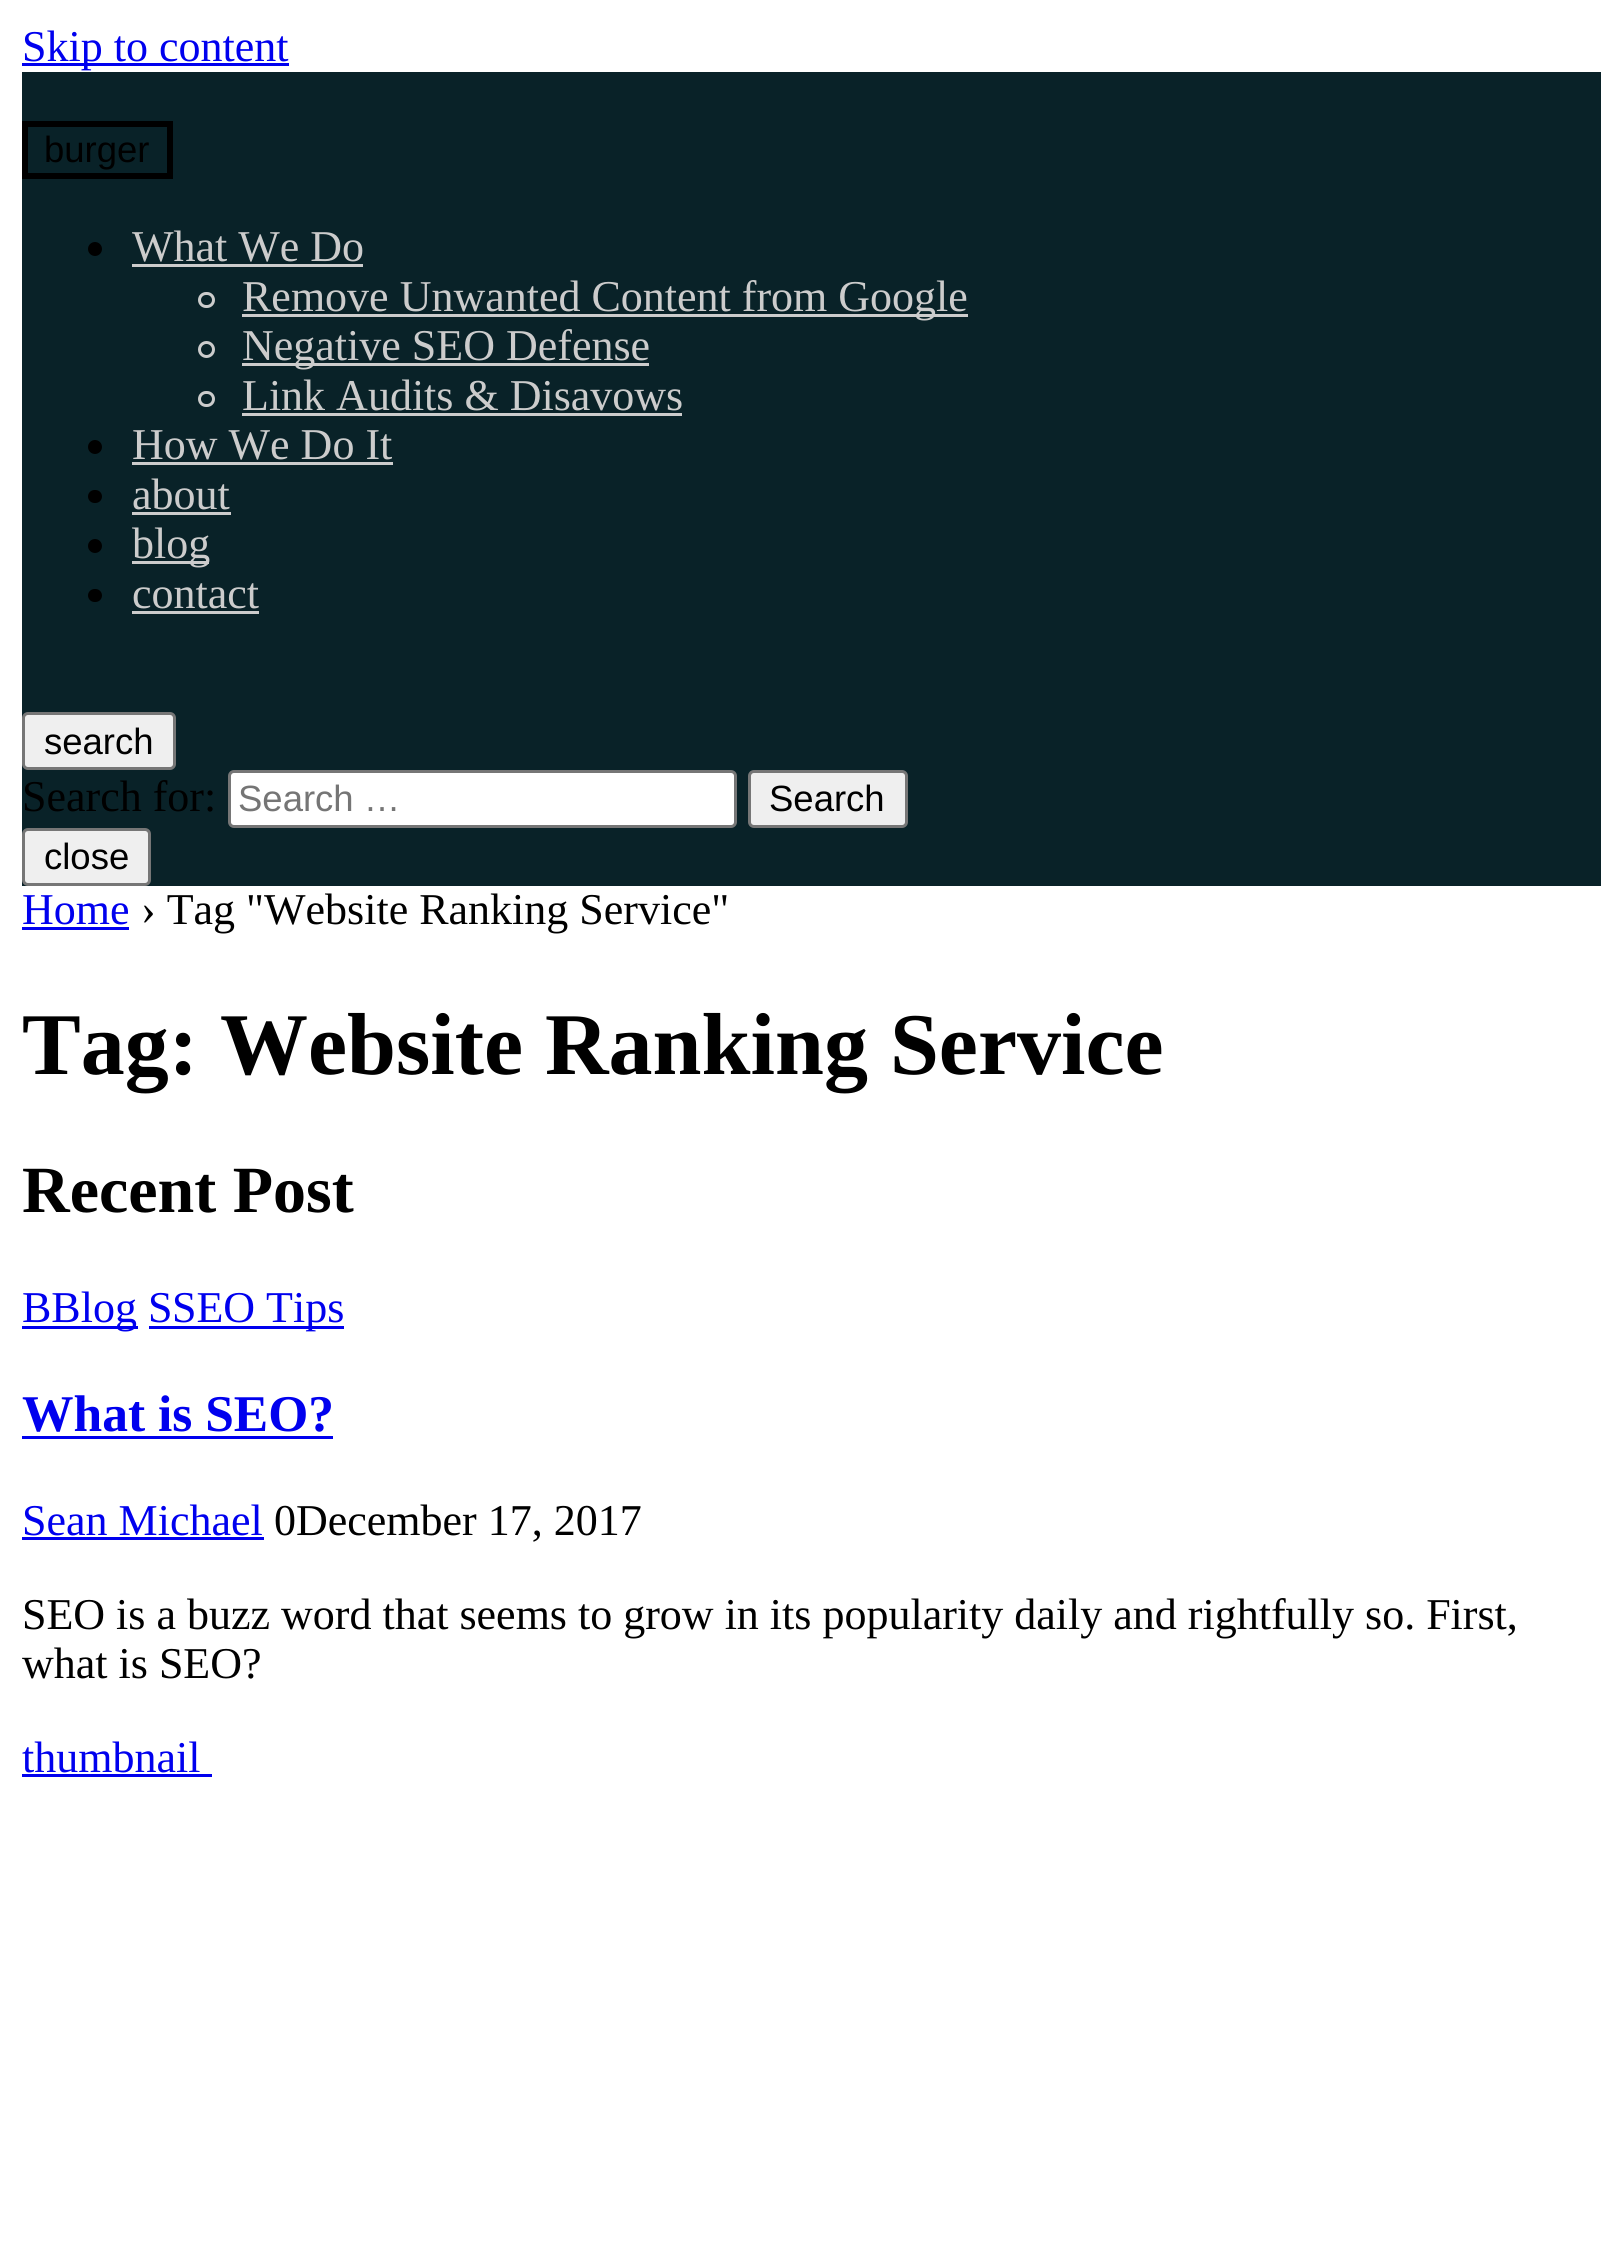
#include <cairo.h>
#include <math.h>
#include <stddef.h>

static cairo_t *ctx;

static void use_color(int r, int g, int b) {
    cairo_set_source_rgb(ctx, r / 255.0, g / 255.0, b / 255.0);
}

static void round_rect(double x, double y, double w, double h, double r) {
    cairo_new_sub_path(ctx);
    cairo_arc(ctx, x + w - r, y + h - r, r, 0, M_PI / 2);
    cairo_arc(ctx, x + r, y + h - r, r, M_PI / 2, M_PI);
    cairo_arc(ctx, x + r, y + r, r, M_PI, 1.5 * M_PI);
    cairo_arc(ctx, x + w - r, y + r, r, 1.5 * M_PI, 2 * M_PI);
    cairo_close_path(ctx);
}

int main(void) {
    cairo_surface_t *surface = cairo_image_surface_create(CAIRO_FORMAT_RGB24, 1621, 2246);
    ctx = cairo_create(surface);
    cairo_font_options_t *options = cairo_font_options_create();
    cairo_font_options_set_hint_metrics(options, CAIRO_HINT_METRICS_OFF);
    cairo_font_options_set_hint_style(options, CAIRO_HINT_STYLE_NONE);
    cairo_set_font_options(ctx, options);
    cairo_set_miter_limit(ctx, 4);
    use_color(255, 255, 255);
    cairo_paint(ctx);
    use_color(0, 0, 238);
    cairo_rectangle(ctx, 22, 63, 267, 3);
    cairo_fill(ctx);
    cairo_select_font_face(ctx, "Liberation Serif", CAIRO_FONT_SLANT_NORMAL, CAIRO_FONT_WEIGHT_NORMAL);
    cairo_set_font_size(ctx, 44);
    cairo_move_to(ctx, 22, 61);
    cairo_show_text(ctx, "Skip to content");
    use_color(9, 34, 40);
    cairo_rectangle(ctx, 22, 72, 1579, 814);
    cairo_fill(ctx);
    cairo_rectangle(ctx, 25, 124, 145, 52);
    use_color(0, 0, 0);
    cairo_set_line_width(ctx, 6);
    cairo_stroke(ctx);
    cairo_select_font_face(ctx, "Liberation Sans", CAIRO_FONT_SLANT_NORMAL, CAIRO_FONT_WEIGHT_NORMAL);
    cairo_set_font_size(ctx, 36.5);
    cairo_move_to(ctx, 44, 162);
    cairo_show_text(ctx, "burger");
    cairo_new_path(ctx);
    cairo_arc(ctx, 95, 249, 7, 0, 2 * M_PI);
    cairo_fill(ctx);
    cairo_select_font_face(ctx, "Liberation Serif", CAIRO_FONT_SLANT_NORMAL, CAIRO_FONT_WEIGHT_NORMAL);
    cairo_set_font_size(ctx, 44);
    use_color(204, 204, 204);
    cairo_move_to(ctx, 132, 261);
    cairo_show_text(ctx, "What We Do");
    cairo_rectangle(ctx, 132, 264, 231, 3);
    cairo_fill(ctx);
    round_rect(199.5, 293.5, 14, 13, 6.5);
    cairo_set_line_width(ctx, 3);
    cairo_stroke(ctx);
    cairo_rectangle(ctx, 242, 314, 726, 3);
    cairo_fill(ctx);
    cairo_move_to(ctx, 242, 311);
    cairo_show_text(ctx, "Remove Unwanted Content from Google");
    cairo_new_path(ctx);
    cairo_arc(ctx, 206.5, 349.5, 7, 0, 2 * M_PI);
    cairo_stroke(ctx);
    cairo_rectangle(ctx, 242, 363, 407, 3);
    cairo_fill(ctx);
    cairo_move_to(ctx, 242, 360);
    cairo_show_text(ctx, "Negative SEO Defense");
    round_rect(199.5, 392.5, 14, 13, 6.5);
    cairo_stroke(ctx);
    cairo_move_to(ctx, 242, 410);
    cairo_show_text(ctx, "Link Audits & Disavows");
    cairo_rectangle(ctx, 242, 413, 440, 3);
    cairo_fill(ctx);
    use_color(0, 0, 0);
    cairo_arc(ctx, 95, 447, 7, 0, 2 * M_PI);
    cairo_fill(ctx);
    use_color(204, 204, 204);
    cairo_move_to(ctx, 132, 459);
    cairo_show_text(ctx, "How We Do It");
    cairo_rectangle(ctx, 132, 462, 261, 3);
    cairo_fill(ctx);
    use_color(0, 0, 0);
    round_rect(88, 490, 14, 13, 6.5);
    cairo_fill(ctx);
    use_color(204, 204, 204);
    cairo_move_to(ctx, 132, 509);
    cairo_show_text(ctx, "about");
    cairo_rectangle(ctx, 132, 512, 99, 3);
    cairo_fill(ctx);
    use_color(0, 0, 0);
    cairo_arc(ctx, 95, 546, 7, 0, 2 * M_PI);
    cairo_fill(ctx);
    use_color(204, 204, 204);
    cairo_rectangle(ctx, 132, 561, 77, 3);
    cairo_fill(ctx);
    cairo_move_to(ctx, 132, 558);
    cairo_show_text(ctx, "blog");
    use_color(0, 0, 0);
    round_rect(88, 589, 14, 13, 6.5);
    cairo_fill(ctx);
    use_color(204, 204, 204);
    cairo_move_to(ctx, 132, 608);
    cairo_show_text(ctx, "contact");
    cairo_rectangle(ctx, 132, 611, 127, 3);
    cairo_fill(ctx);
    use_color(239, 239, 239);
    round_rect(23.5, 713.5, 151, 55, 4.5);
    cairo_fill_preserve(ctx);
    use_color(118, 118, 118);
    cairo_stroke(ctx);
    cairo_select_font_face(ctx, "Liberation Sans", CAIRO_FONT_SLANT_NORMAL, CAIRO_FONT_WEIGHT_NORMAL);
    cairo_set_font_size(ctx, 36.5);
    use_color(0, 0, 0);
    cairo_move_to(ctx, 44, 754);
    cairo_show_text(ctx, "search");
    cairo_select_font_face(ctx, "Liberation Serif", CAIRO_FONT_SLANT_NORMAL, CAIRO_FONT_WEIGHT_NORMAL);
    cairo_set_font_size(ctx, 44);
    cairo_move_to(ctx, 22, 811);
    cairo_show_text(ctx, "Search for:");
    use_color(255, 255, 255);
    round_rect(229.5, 771.5, 506, 55, 4.5);
    cairo_fill_preserve(ctx);
    use_color(118, 118, 118);
    cairo_stroke(ctx);
    cairo_select_font_face(ctx, "Liberation Sans", CAIRO_FONT_SLANT_NORMAL, CAIRO_FONT_WEIGHT_NORMAL);
    cairo_set_font_size(ctx, 36.5);
    use_color(117, 117, 117);
    cairo_move_to(ctx, 238, 811);
    cairo_show_text(ctx, "Search …");
    use_color(239, 239, 239);
    round_rect(749.5, 771.5, 157, 55, 4.5);
    cairo_fill_preserve(ctx);
    use_color(118, 118, 118);
    cairo_stroke(ctx);
    use_color(0, 0, 0);
    cairo_move_to(ctx, 769, 811);
    cairo_show_text(ctx, "Search");
    use_color(239, 239, 239);
    round_rect(23.5, 829.5, 126, 55, 4.5);
    cairo_fill_preserve(ctx);
    use_color(118, 118, 118);
    cairo_stroke(ctx);
    use_color(0, 0, 0);
    cairo_move_to(ctx, 44, 869);
    cairo_show_text(ctx, "close");
    cairo_select_font_face(ctx, "Liberation Serif", CAIRO_FONT_SLANT_NORMAL, CAIRO_FONT_WEIGHT_NORMAL);
    cairo_set_font_size(ctx, 44);
    use_color(0, 0, 238);
    cairo_move_to(ctx, 22, 924);
    cairo_show_text(ctx, "Home");
    cairo_rectangle(ctx, 22, 927, 107, 3);
    cairo_fill(ctx);
    use_color(0, 0, 0);
    cairo_move_to(ctx, 141, 924);
    cairo_show_text(ctx, "› Tag \"Website Ranking Service\"");
    cairo_select_font_face(ctx, "Liberation Serif", CAIRO_FONT_SLANT_NORMAL, CAIRO_FONT_WEIGHT_BOLD);
    cairo_set_font_size(ctx, 88);
    cairo_move_to(ctx, 22, 1074);
    cairo_show_text(ctx, "Tag: Website Ranking Service");
    cairo_set_font_size(ctx, 66);
    cairo_move_to(ctx, 22, 1212);
    cairo_show_text(ctx, "Recent Post");
    use_color(0, 0, 238);
    cairo_rectangle(ctx, 22, 1326, 116, 3);
    cairo_fill(ctx);
    cairo_select_font_face(ctx, "Liberation Serif", CAIRO_FONT_SLANT_NORMAL, CAIRO_FONT_WEIGHT_NORMAL);
    cairo_set_font_size(ctx, 44);
    cairo_move_to(ctx, 22, 1322);
    cairo_show_text(ctx, "BBlog S");
    cairo_rectangle(ctx, 149, 1326, 195, 3);
    cairo_fill(ctx);
    cairo_move_to(ctx, 172, 1322);
    cairo_show_text(ctx, "SEO Tips");
    cairo_select_font_face(ctx, "Liberation Serif", CAIRO_FONT_SLANT_NORMAL, CAIRO_FONT_WEIGHT_BOLD);
    cairo_set_font_size(ctx, 51.5);
    cairo_move_to(ctx, 22, 1431);
    cairo_show_text(ctx, "What is SEO?");
    cairo_rectangle(ctx, 22, 1436, 311, 3);
    cairo_fill(ctx);
    cairo_select_font_face(ctx, "Liberation Serif", CAIRO_FONT_SLANT_NORMAL, CAIRO_FONT_WEIGHT_NORMAL);
    cairo_set_font_size(ctx, 44);
    cairo_move_to(ctx, 22, 1535);
    cairo_show_text(ctx, "Sean Michael");
    cairo_rectangle(ctx, 22, 1537, 242, 3);
    cairo_fill(ctx);
    use_color(0, 0, 0);
    cairo_move_to(ctx, 274, 1535);
    cairo_show_text(ctx, "0December 17, 2017");
    cairo_move_to(ctx, 22, 1629);
    cairo_show_text(ctx, "SEO is a buzz word that seems to grow in its popularity daily and rightfully so. First,");
    cairo_move_to(ctx, 22, 1678);
    cairo_show_text(ctx, "what is SEO?");
    use_color(0, 0, 238);
    cairo_move_to(ctx, 22, 1772);
    cairo_show_text(ctx, "thumbnail");
    cairo_rectangle(ctx, 22, 1774, 190, 3);
    cairo_fill(ctx);
    cairo_surface_write_to_png(surface, "result.png");
    cairo_font_options_destroy(options);
    cairo_destroy(ctx);
    cairo_surface_destroy(surface);
    return 0;
}
